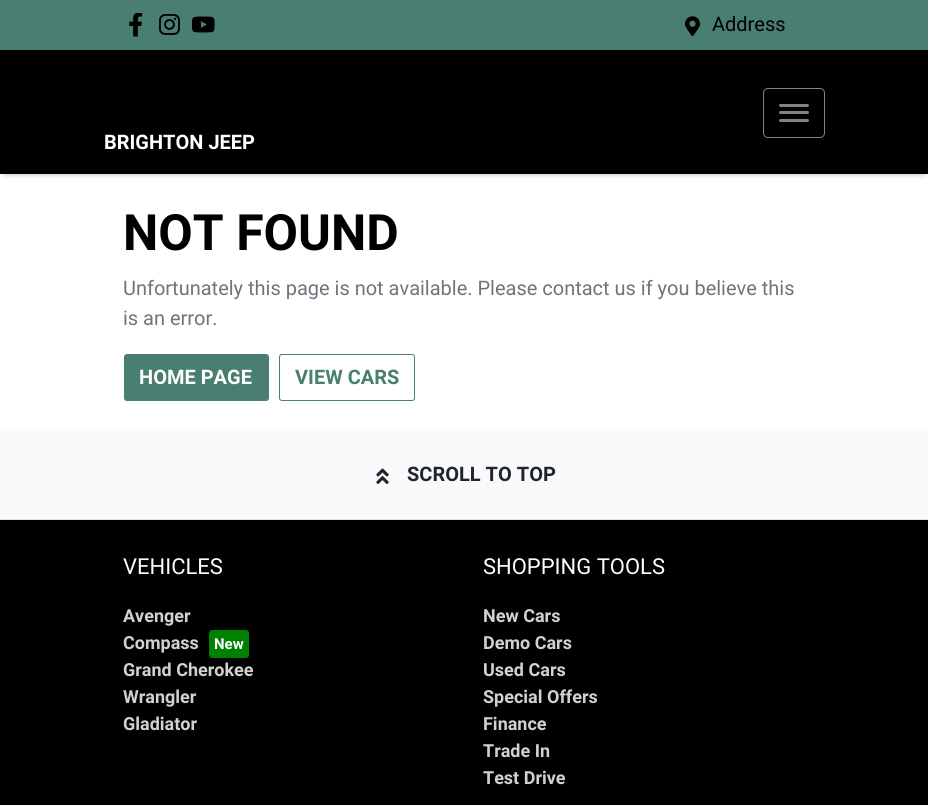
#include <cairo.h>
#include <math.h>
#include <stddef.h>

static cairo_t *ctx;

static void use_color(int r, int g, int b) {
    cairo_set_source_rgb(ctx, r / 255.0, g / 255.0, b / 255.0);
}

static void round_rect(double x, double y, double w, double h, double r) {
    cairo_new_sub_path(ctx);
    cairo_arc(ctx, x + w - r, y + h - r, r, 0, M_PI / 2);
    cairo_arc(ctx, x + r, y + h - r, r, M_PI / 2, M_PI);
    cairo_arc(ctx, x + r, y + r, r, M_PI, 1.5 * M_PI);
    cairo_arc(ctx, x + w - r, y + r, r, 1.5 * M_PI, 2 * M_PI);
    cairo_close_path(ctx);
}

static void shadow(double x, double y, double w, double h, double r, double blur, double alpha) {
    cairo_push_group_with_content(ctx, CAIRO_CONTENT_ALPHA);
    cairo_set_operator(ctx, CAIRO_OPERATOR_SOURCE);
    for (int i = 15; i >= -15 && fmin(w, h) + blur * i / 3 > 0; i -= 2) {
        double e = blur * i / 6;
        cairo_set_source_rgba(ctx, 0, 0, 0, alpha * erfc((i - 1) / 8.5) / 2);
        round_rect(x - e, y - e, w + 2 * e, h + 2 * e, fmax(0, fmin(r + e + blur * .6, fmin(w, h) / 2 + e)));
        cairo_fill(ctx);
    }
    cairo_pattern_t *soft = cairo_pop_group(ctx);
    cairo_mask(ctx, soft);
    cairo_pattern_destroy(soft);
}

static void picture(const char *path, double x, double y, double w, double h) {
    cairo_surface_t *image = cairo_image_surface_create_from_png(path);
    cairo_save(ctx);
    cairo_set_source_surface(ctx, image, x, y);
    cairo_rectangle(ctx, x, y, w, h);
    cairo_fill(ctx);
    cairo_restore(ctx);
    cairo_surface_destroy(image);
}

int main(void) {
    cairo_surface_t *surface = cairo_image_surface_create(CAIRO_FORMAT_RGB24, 928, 805);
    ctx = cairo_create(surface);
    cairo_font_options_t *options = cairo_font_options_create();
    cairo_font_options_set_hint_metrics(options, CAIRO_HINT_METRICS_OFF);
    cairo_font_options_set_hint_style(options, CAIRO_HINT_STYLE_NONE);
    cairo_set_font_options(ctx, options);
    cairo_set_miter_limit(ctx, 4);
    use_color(255, 255, 255);
    cairo_paint(ctx);
    use_color(72, 127, 112);
    cairo_rectangle(ctx, 0, 0, 928, 50);
    cairo_fill(ctx);
    picture("img1.png", 129, 13, 14, 24);
    picture("img2.png", 159, 14, 21, 21);
    picture("img3.png", 191, 16, 24, 17);
    picture("img4.png", 685, 16, 15, 20);
    cairo_select_font_face(ctx, "Roboto", CAIRO_FONT_SLANT_NORMAL, CAIRO_FONT_WEIGHT_NORMAL);
    cairo_set_font_size(ctx, 20);
    use_color(0, 0, 0);
    cairo_move_to(ctx, 712, 31);
    cairo_show_text(ctx, "Address");
    use_color(0, 0, 0);
    shadow(4, 60, 921, 116, 0, 2, 0.15);
    use_color(0, 0, 0);
    cairo_rectangle(ctx, 0, 50, 928, 124);
    cairo_fill(ctx);
    round_rect(763.5, 88.5, 61, 49, 4.5);
    use_color(131, 131, 131);
    cairo_set_line_width(ctx, 1);
    cairo_stroke(ctx);
    round_rect(779, 104, 30, 3, 1.5);
    cairo_fill(ctx);
    round_rect(779, 111, 30, 3, 1.5);
    cairo_fill(ctx);
    round_rect(779, 119, 30, 3, 1.5);
    cairo_fill(ctx);
    cairo_select_font_face(ctx, "Roboto", CAIRO_FONT_SLANT_NORMAL, CAIRO_FONT_WEIGHT_BOLD);
    use_color(255, 255, 255);
    cairo_move_to(ctx, 104, 149);
    cairo_show_text(ctx, "BRIGHTON JEEP");
    cairo_set_font_size(ctx, 50);
    use_color(0, 0, 0);
    cairo_move_to(ctx, 123, 250);
    cairo_show_text(ctx, "NOT FOUND");
    cairo_select_font_face(ctx, "Roboto", CAIRO_FONT_SLANT_NORMAL, CAIRO_FONT_WEIGHT_NORMAL);
    cairo_set_font_size(ctx, 20);
    use_color(108, 117, 125);
    cairo_move_to(ctx, 123, 295);
    cairo_show_text(ctx, "Unfortunately this page is not available. Please contact us if you believe this");
    cairo_move_to(ctx, 123, 325);
    cairo_show_text(ctx, "is an error.");
    use_color(72, 127, 112);
    round_rect(124.5, 354.5, 144, 46, 2.5);
    cairo_fill_preserve(ctx);
    cairo_stroke(ctx);
    cairo_select_font_face(ctx, "Roboto", CAIRO_FONT_SLANT_NORMAL, CAIRO_FONT_WEIGHT_BOLD);
    use_color(255, 255, 255);
    cairo_move_to(ctx, 139, 384);
    cairo_show_text(ctx, "HOME PAGE");
    round_rect(279.5, 354.5, 135, 46, 2.5);
    use_color(72, 127, 112);
    cairo_stroke(ctx);
    cairo_move_to(ctx, 295, 384);
    cairo_show_text(ctx, "VIEW CARS");
    use_color(248, 249, 250);
    cairo_rectangle(ctx, 0, 431, 928, 88);
    cairo_fill(ctx);
    picture("img5.png", 376, 468, 13, 16);
    use_color(33, 37, 41);
    cairo_move_to(ctx, 407, 481);
    cairo_show_text(ctx, "SCROLL TO TOP");
    use_color(0, 0, 0);
    cairo_rectangle(ctx, 0, 520, 928, 285);
    cairo_fill(ctx);
    use_color(222, 226, 230);
    cairo_rectangle(ctx, 0, 519, 928, 1);
    cairo_fill(ctx);
    cairo_select_font_face(ctx, "Roboto", CAIRO_FONT_SLANT_NORMAL, CAIRO_FONT_WEIGHT_NORMAL);
    cairo_set_font_size(ctx, 22);
    use_color(255, 255, 255);
    cairo_move_to(ctx, 123, 574);
    cairo_show_text(ctx, "VEHICLES");
    cairo_select_font_face(ctx, "Roboto", CAIRO_FONT_SLANT_NORMAL, CAIRO_FONT_WEIGHT_BOLD);
    cairo_set_font_size(ctx, 18);
    use_color(209, 209, 209);
    cairo_move_to(ctx, 123, 622);
    cairo_show_text(ctx, "Avenger");
    cairo_move_to(ctx, 123, 649);
    cairo_show_text(ctx, "Compass");
    use_color(0, 128, 0);
    round_rect(209, 630, 40, 28, 3);
    cairo_fill(ctx);
    cairo_set_font_size(ctx, 15);
    use_color(255, 255, 255);
    cairo_move_to(ctx, 214, 649);
    cairo_show_text(ctx, "New");
    cairo_set_font_size(ctx, 18);
    use_color(209, 209, 209);
    cairo_move_to(ctx, 123, 676);
    cairo_show_text(ctx, "Grand Cherokee");
    cairo_move_to(ctx, 123, 703);
    cairo_show_text(ctx, "Wrangler");
    cairo_move_to(ctx, 123, 730);
    cairo_show_text(ctx, "Gladiator");
    cairo_select_font_face(ctx, "Roboto", CAIRO_FONT_SLANT_NORMAL, CAIRO_FONT_WEIGHT_NORMAL);
    cairo_set_font_size(ctx, 22);
    use_color(255, 255, 255);
    cairo_move_to(ctx, 483, 574);
    cairo_show_text(ctx, "SHOPPING TOOLS");
    cairo_select_font_face(ctx, "Roboto", CAIRO_FONT_SLANT_NORMAL, CAIRO_FONT_WEIGHT_BOLD);
    cairo_set_font_size(ctx, 18);
    use_color(209, 209, 209);
    cairo_move_to(ctx, 483, 622);
    cairo_show_text(ctx, "New Cars");
    cairo_move_to(ctx, 483, 649);
    cairo_show_text(ctx, "Demo Cars");
    cairo_move_to(ctx, 483, 676);
    cairo_show_text(ctx, "Used Cars");
    cairo_move_to(ctx, 483, 703);
    cairo_show_text(ctx, "Special Offers");
    cairo_move_to(ctx, 483, 730);
    cairo_show_text(ctx, "Finance");
    cairo_move_to(ctx, 483, 757);
    cairo_show_text(ctx, "Trade In");
    cairo_move_to(ctx, 483, 784);
    cairo_show_text(ctx, "Test Drive");
    cairo_surface_write_to_png(surface, "result.png");
    cairo_font_options_destroy(options);
    cairo_destroy(ctx);
    cairo_surface_destroy(surface);
    return 0;
}
